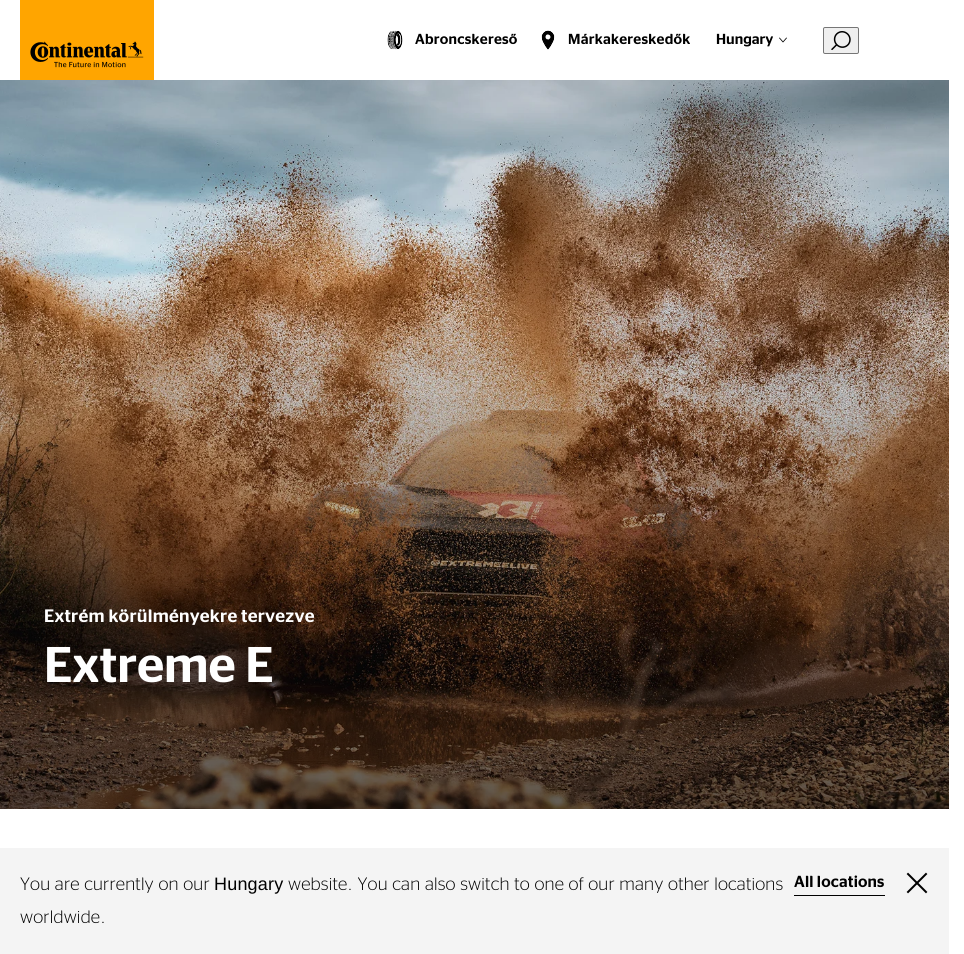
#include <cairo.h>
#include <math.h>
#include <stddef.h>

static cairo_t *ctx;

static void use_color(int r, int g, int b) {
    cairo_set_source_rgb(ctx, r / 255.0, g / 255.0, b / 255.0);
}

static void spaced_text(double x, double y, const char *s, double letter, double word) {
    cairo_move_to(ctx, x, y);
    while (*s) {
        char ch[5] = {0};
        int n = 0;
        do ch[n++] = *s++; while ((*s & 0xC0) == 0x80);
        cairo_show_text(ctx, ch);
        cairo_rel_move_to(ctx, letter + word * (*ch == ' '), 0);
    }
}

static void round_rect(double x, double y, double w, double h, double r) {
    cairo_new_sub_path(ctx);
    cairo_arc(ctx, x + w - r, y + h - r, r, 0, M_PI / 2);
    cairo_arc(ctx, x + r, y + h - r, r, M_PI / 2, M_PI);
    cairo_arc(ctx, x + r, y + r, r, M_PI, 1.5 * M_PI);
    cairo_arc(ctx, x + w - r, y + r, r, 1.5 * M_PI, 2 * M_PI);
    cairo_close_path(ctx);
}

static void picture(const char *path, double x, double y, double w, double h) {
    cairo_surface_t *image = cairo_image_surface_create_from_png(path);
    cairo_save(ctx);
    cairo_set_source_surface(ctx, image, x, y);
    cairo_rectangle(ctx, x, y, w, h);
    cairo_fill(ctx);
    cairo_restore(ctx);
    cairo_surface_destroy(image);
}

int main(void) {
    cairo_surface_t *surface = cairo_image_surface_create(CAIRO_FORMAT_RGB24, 964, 954);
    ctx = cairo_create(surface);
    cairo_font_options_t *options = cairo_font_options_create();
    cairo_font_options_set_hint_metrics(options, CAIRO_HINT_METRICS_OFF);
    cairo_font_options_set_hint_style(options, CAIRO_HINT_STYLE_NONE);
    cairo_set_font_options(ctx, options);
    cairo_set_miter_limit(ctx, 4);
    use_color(255, 255, 255);
    cairo_paint(ctx);
    use_color(255, 165, 0);
    cairo_rectangle(ctx, 20, 0, 134, 80);
    cairo_fill(ctx);
    picture("img1.png", 30, 41, 114, 27);
    picture("img2.png", 387, 30, 16, 20);
    cairo_select_font_face(ctx, "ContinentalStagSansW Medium", CAIRO_FONT_SLANT_NORMAL, CAIRO_FONT_WEIGHT_NORMAL);
    cairo_set_font_size(ctx, 14.5);
    use_color(0, 0, 0);
    spaced_text(415, 44, "Abroncskereső", 0.25, 0);
    picture("img3.png", 541, 30, 14, 20);
    spaced_text(568, 44, "Márkakereskedők", 0.25, 0);
    cairo_move_to(ctx, 716, 44);
    cairo_show_text(ctx, "Hungary");
    cairo_new_path(ctx);
    cairo_move_to(ctx, 779.5, 38);
    cairo_line_to(ctx, 783, 42);
    cairo_line_to(ctx, 786.5, 38);
    cairo_set_line_width(ctx, 0.8);
    cairo_set_line_cap(ctx, CAIRO_LINE_CAP_ROUND);
    cairo_set_line_join(ctx, CAIRO_LINE_JOIN_ROUND);
    cairo_stroke(ctx);
    use_color(239, 239, 239);
    round_rect(823.5, 27.5, 35, 26, 1.5);
    cairo_fill_preserve(ctx);
    use_color(118, 118, 118);
    cairo_set_line_width(ctx, 1);
    cairo_set_line_cap(ctx, CAIRO_LINE_CAP_BUTT);
    cairo_set_line_join(ctx, CAIRO_LINE_JOIN_MITER);
    cairo_stroke(ctx);
    picture("img4.png", 831, 31, 20, 19);
    picture("img5.png", 0, 80, 949, 729);
    cairo_set_font_size(ctx, 18);
    use_color(255, 255, 255);
    spaced_text(44, 622, "Extrém körülményekre tervezve", 0.25, 0);
    cairo_set_font_size(ctx, 50);
    cairo_move_to(ctx, 44, 682);
    cairo_show_text(ctx, "Extreme E");
    use_color(244, 244, 244);
    cairo_rectangle(ctx, 0, 848, 949, 106);
    cairo_fill(ctx);
    cairo_select_font_face(ctx, "ContinentalStagSansW Light", CAIRO_FONT_SLANT_NORMAL, CAIRO_FONT_WEIGHT_NORMAL);
    cairo_set_font_size(ctx, 18);
    use_color(0, 0, 0);
    spaced_text(20, 890, "You are currently on our", 0.2, 0);
    cairo_select_font_face(ctx, "Liberation Sans", CAIRO_FONT_SLANT_NORMAL, CAIRO_FONT_WEIGHT_NORMAL);
    spaced_text(214, 890, "Hungary", 0.2, 0);
    cairo_select_font_face(ctx, "ContinentalStagSansW Light", CAIRO_FONT_SLANT_NORMAL, CAIRO_FONT_WEIGHT_NORMAL);
    spaced_text(288, 890, "website. You can also switch to one of our many other locations", 0.2, 0);
    spaced_text(20, 923, "worldwide.", 0.2, 0);
    cairo_select_font_face(ctx, "ContinentalStagSansW Medium", CAIRO_FONT_SLANT_NORMAL, CAIRO_FONT_WEIGHT_NORMAL);
    cairo_set_font_size(ctx, 16);
    spaced_text(794, 887, "All locations", 0.2, 0);
    cairo_rectangle(ctx, 794, 895, 91, 1);
    cairo_fill(ctx);
    picture("img6.png", 906, 872, 22, 22);
    cairo_surface_write_to_png(surface, "result.png");
    cairo_font_options_destroy(options);
    cairo_destroy(ctx);
    cairo_surface_destroy(surface);
    return 0;
}
